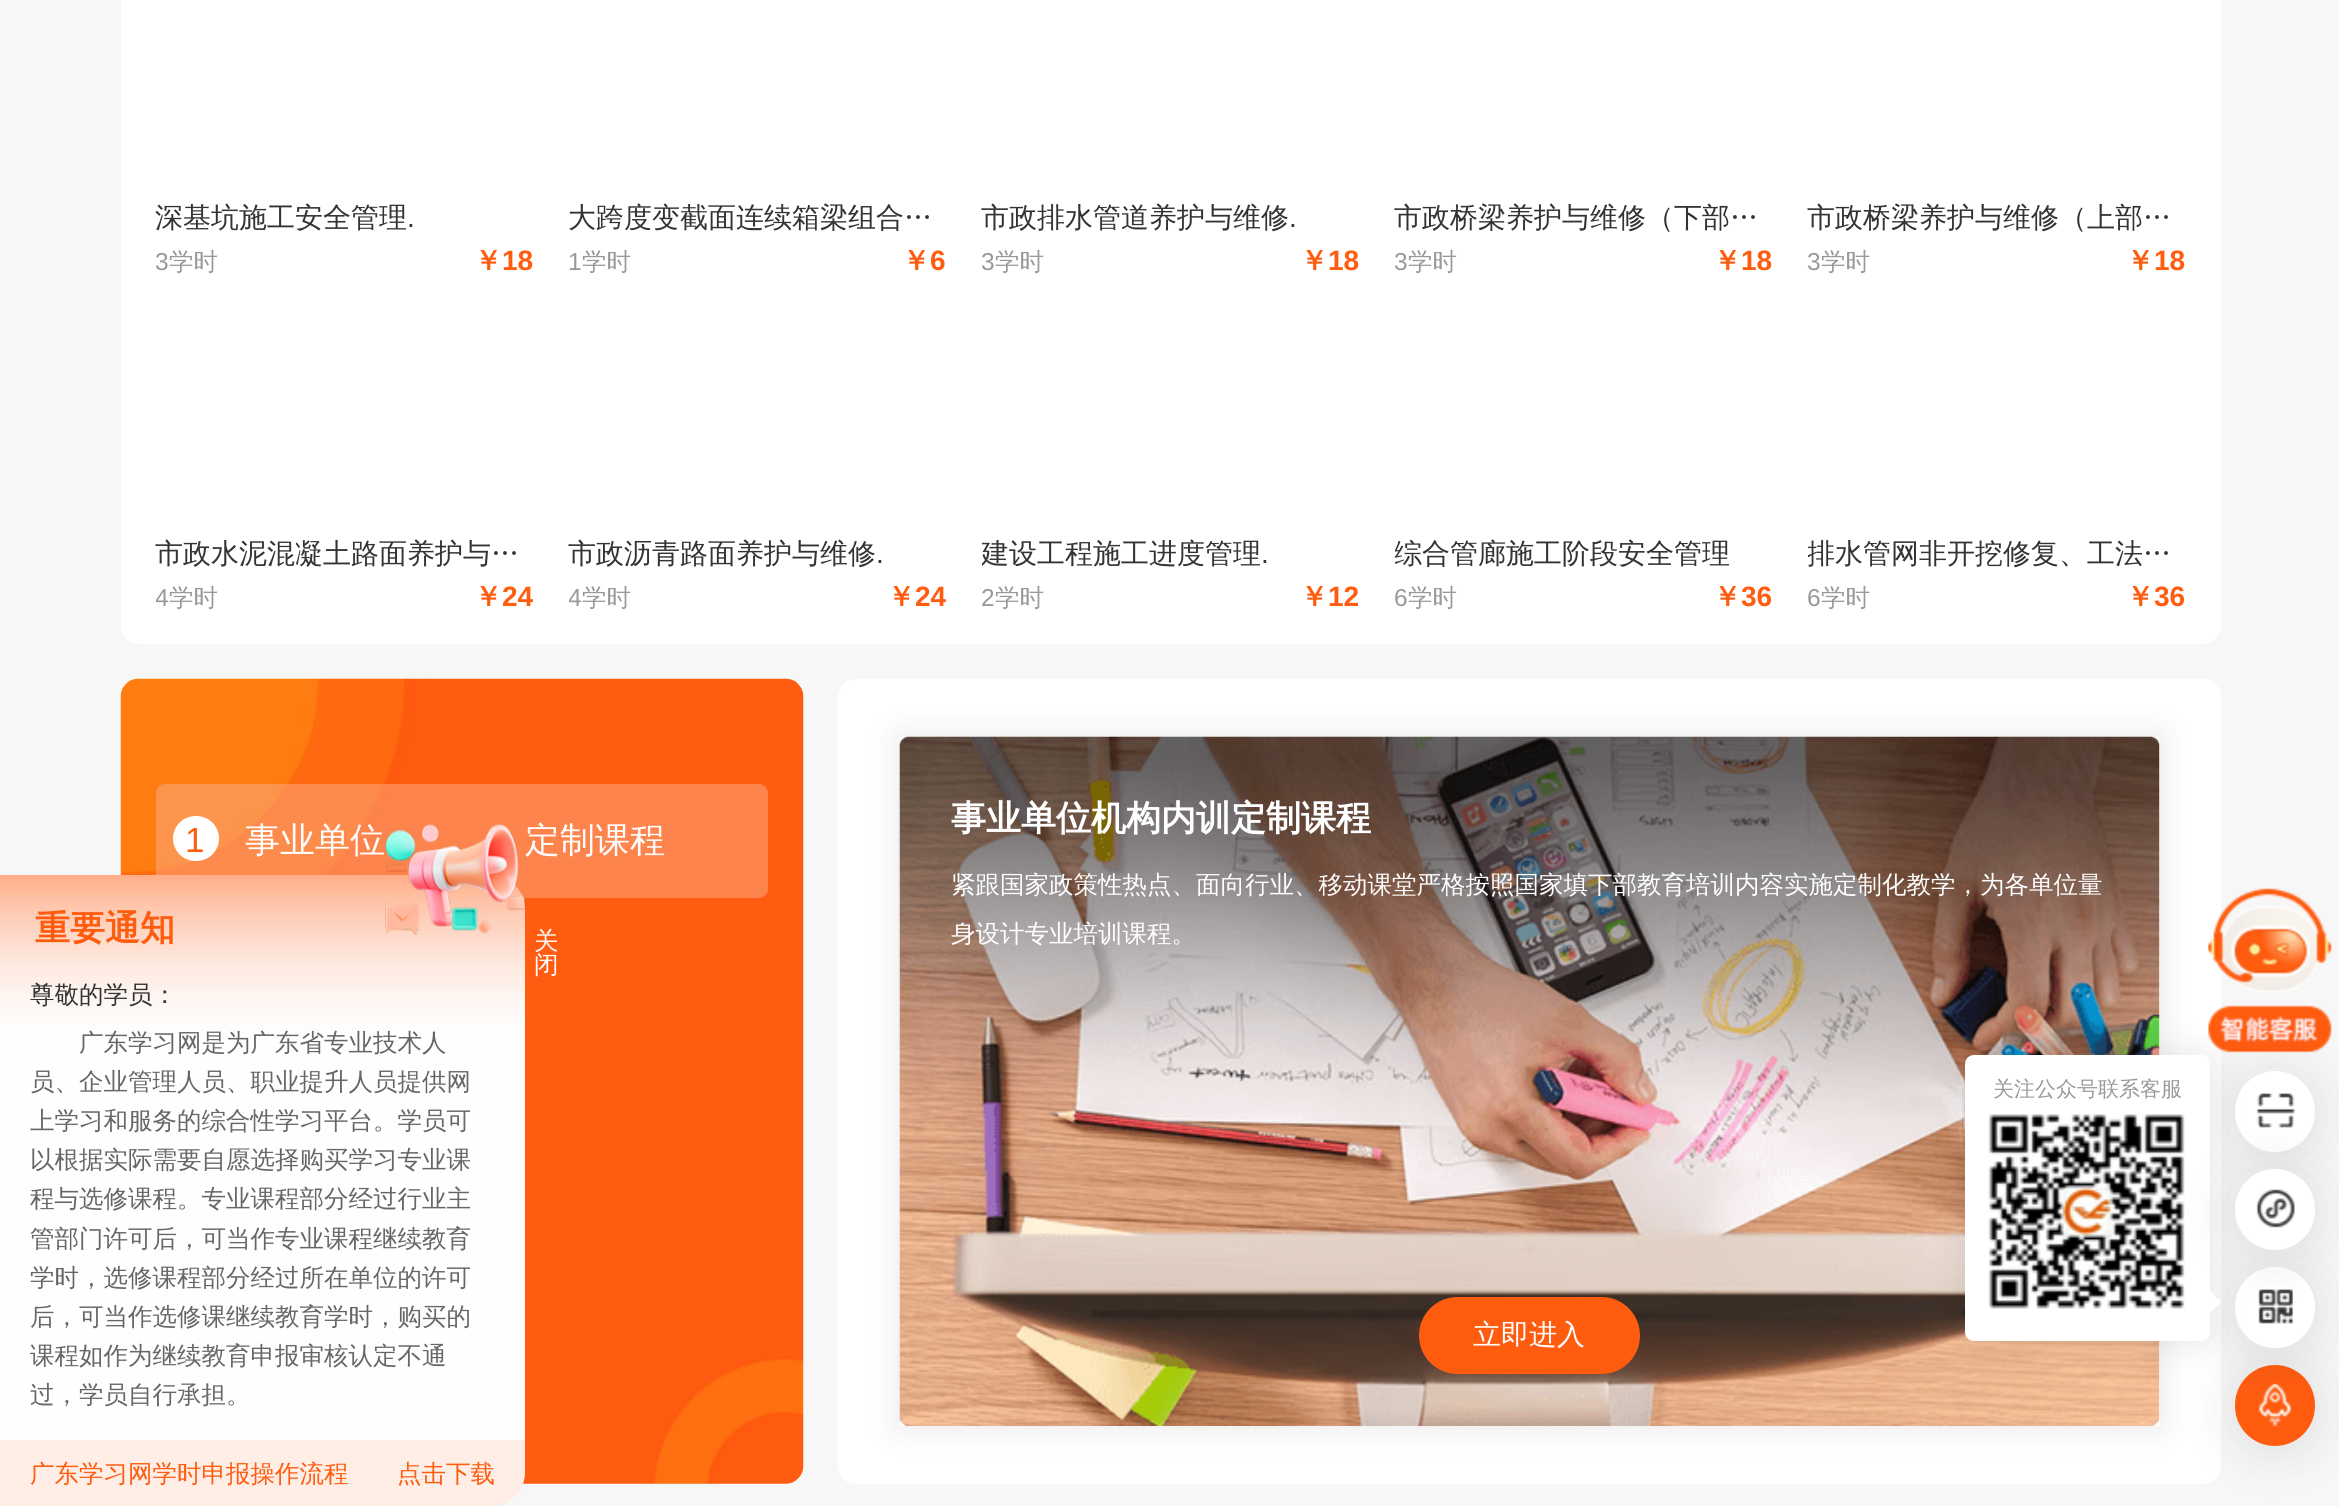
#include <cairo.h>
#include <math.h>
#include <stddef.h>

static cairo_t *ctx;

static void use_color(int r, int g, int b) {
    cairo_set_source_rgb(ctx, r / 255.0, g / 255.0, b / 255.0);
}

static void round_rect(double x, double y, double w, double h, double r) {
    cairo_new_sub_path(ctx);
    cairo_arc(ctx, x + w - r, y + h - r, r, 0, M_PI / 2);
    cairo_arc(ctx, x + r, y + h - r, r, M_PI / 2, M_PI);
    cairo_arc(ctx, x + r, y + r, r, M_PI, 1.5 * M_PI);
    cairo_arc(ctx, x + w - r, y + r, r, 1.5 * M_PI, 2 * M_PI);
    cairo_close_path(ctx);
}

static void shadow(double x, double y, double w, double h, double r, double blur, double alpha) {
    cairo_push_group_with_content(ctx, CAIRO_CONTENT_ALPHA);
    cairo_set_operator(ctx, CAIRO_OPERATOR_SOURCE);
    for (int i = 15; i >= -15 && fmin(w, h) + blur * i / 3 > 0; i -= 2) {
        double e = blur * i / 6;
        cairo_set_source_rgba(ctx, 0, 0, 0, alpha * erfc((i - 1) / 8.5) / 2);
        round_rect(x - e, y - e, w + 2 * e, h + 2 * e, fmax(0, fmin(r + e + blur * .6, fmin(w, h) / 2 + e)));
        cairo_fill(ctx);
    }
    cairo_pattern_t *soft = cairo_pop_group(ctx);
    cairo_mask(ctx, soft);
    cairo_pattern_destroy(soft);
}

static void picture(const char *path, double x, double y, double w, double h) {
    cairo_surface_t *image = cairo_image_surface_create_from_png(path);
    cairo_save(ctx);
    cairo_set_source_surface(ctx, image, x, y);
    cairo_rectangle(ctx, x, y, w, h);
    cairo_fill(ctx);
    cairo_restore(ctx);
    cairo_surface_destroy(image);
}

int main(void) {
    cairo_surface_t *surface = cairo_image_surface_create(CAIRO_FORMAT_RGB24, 2339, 1506);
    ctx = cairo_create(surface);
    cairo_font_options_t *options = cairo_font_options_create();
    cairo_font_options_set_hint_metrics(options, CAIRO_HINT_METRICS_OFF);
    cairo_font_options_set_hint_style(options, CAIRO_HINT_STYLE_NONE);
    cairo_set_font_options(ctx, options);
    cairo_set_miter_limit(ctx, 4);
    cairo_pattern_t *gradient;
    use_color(247, 247, 247);
    cairo_paint(ctx);
    use_color(255, 255, 255);
    round_rect(121, -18, 2100, 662, 18);
    cairo_fill(ctx);
    cairo_select_font_face(ctx, "WenQuanYi Zen Hei Medium", CAIRO_FONT_SLANT_NORMAL, CAIRO_FONT_WEIGHT_NORMAL);
    cairo_set_font_size(ctx, 28);
    use_color(51, 51, 51);
    cairo_move_to(ctx, 155, 227);
    cairo_show_text(ctx, "深基坑施工安全管理");
    cairo_select_font_face(ctx, "Liberation Sans", CAIRO_FONT_SLANT_NORMAL, CAIRO_FONT_WEIGHT_NORMAL);
    cairo_move_to(ctx, 407, 227);
    cairo_show_text(ctx, ".");
    cairo_set_font_size(ctx, 24.5);
    use_color(153, 153, 153);
    cairo_move_to(ctx, 155, 270);
    cairo_show_text(ctx, "3");
    cairo_select_font_face(ctx, "WenQuanYi Zen Hei Medium", CAIRO_FONT_SLANT_NORMAL, CAIRO_FONT_WEIGHT_NORMAL);
    cairo_move_to(ctx, 169, 270);
    cairo_show_text(ctx, "学时");
    cairo_select_font_face(ctx, "WenQuanYi Zen Hei", CAIRO_FONT_SLANT_NORMAL, CAIRO_FONT_WEIGHT_BOLD);
    cairo_set_font_size(ctx, 28);
    use_color(255, 92, 16);
    cairo_move_to(ctx, 474, 270);
    cairo_show_text(ctx, "￥");
    cairo_select_font_face(ctx, "Liberation Sans", CAIRO_FONT_SLANT_NORMAL, CAIRO_FONT_WEIGHT_BOLD);
    cairo_move_to(ctx, 502, 270);
    cairo_show_text(ctx, "18");
    cairo_select_font_face(ctx, "WenQuanYi Zen Hei Medium", CAIRO_FONT_SLANT_NORMAL, CAIRO_FONT_WEIGHT_NORMAL);
    use_color(51, 51, 51);
    cairo_move_to(ctx, 568, 227);
    cairo_show_text(ctx, "大跨度变截面连续箱梁组合…");
    cairo_select_font_face(ctx, "Liberation Sans", CAIRO_FONT_SLANT_NORMAL, CAIRO_FONT_WEIGHT_NORMAL);
    cairo_set_font_size(ctx, 24.5);
    use_color(153, 153, 153);
    cairo_move_to(ctx, 568, 270);
    cairo_show_text(ctx, "1");
    cairo_select_font_face(ctx, "WenQuanYi Zen Hei Medium", CAIRO_FONT_SLANT_NORMAL, CAIRO_FONT_WEIGHT_NORMAL);
    cairo_move_to(ctx, 582, 270);
    cairo_show_text(ctx, "学时");
    cairo_select_font_face(ctx, "WenQuanYi Zen Hei", CAIRO_FONT_SLANT_NORMAL, CAIRO_FONT_WEIGHT_BOLD);
    cairo_set_font_size(ctx, 28);
    use_color(255, 92, 16);
    cairo_move_to(ctx, 902, 270);
    cairo_show_text(ctx, "￥");
    cairo_select_font_face(ctx, "Liberation Sans", CAIRO_FONT_SLANT_NORMAL, CAIRO_FONT_WEIGHT_BOLD);
    cairo_move_to(ctx, 930, 270);
    cairo_show_text(ctx, "6");
    cairo_select_font_face(ctx, "WenQuanYi Zen Hei Medium", CAIRO_FONT_SLANT_NORMAL, CAIRO_FONT_WEIGHT_NORMAL);
    use_color(51, 51, 51);
    cairo_move_to(ctx, 981, 227);
    cairo_show_text(ctx, "市政排水管道养护与维修");
    cairo_select_font_face(ctx, "Liberation Sans", CAIRO_FONT_SLANT_NORMAL, CAIRO_FONT_WEIGHT_NORMAL);
    cairo_move_to(ctx, 1289, 227);
    cairo_show_text(ctx, ".");
    cairo_set_font_size(ctx, 24.5);
    use_color(153, 153, 153);
    cairo_move_to(ctx, 981, 270);
    cairo_show_text(ctx, "3");
    cairo_select_font_face(ctx, "WenQuanYi Zen Hei Medium", CAIRO_FONT_SLANT_NORMAL, CAIRO_FONT_WEIGHT_NORMAL);
    cairo_move_to(ctx, 995, 270);
    cairo_show_text(ctx, "学时");
    cairo_select_font_face(ctx, "WenQuanYi Zen Hei", CAIRO_FONT_SLANT_NORMAL, CAIRO_FONT_WEIGHT_BOLD);
    cairo_set_font_size(ctx, 28);
    use_color(255, 92, 16);
    cairo_move_to(ctx, 1300, 270);
    cairo_show_text(ctx, "￥");
    cairo_select_font_face(ctx, "Liberation Sans", CAIRO_FONT_SLANT_NORMAL, CAIRO_FONT_WEIGHT_BOLD);
    cairo_move_to(ctx, 1328, 270);
    cairo_show_text(ctx, "18");
    cairo_select_font_face(ctx, "WenQuanYi Zen Hei Medium", CAIRO_FONT_SLANT_NORMAL, CAIRO_FONT_WEIGHT_NORMAL);
    use_color(51, 51, 51);
    cairo_move_to(ctx, 1394, 227);
    cairo_show_text(ctx, "市政桥梁养护与维修（下部…");
    cairo_select_font_face(ctx, "Liberation Sans", CAIRO_FONT_SLANT_NORMAL, CAIRO_FONT_WEIGHT_NORMAL);
    cairo_set_font_size(ctx, 24.5);
    use_color(153, 153, 153);
    cairo_move_to(ctx, 1394, 270);
    cairo_show_text(ctx, "3");
    cairo_select_font_face(ctx, "WenQuanYi Zen Hei Medium", CAIRO_FONT_SLANT_NORMAL, CAIRO_FONT_WEIGHT_NORMAL);
    cairo_move_to(ctx, 1408, 270);
    cairo_show_text(ctx, "学时");
    cairo_select_font_face(ctx, "WenQuanYi Zen Hei", CAIRO_FONT_SLANT_NORMAL, CAIRO_FONT_WEIGHT_BOLD);
    cairo_set_font_size(ctx, 28);
    use_color(255, 92, 16);
    cairo_move_to(ctx, 1713, 270);
    cairo_show_text(ctx, "￥");
    cairo_select_font_face(ctx, "Liberation Sans", CAIRO_FONT_SLANT_NORMAL, CAIRO_FONT_WEIGHT_BOLD);
    cairo_move_to(ctx, 1741, 270);
    cairo_show_text(ctx, "18");
    cairo_select_font_face(ctx, "WenQuanYi Zen Hei Medium", CAIRO_FONT_SLANT_NORMAL, CAIRO_FONT_WEIGHT_NORMAL);
    use_color(51, 51, 51);
    cairo_move_to(ctx, 1807, 227);
    cairo_show_text(ctx, "市政桥梁养护与维修（上部…");
    cairo_select_font_face(ctx, "Liberation Sans", CAIRO_FONT_SLANT_NORMAL, CAIRO_FONT_WEIGHT_NORMAL);
    cairo_set_font_size(ctx, 24.5);
    use_color(153, 153, 153);
    cairo_move_to(ctx, 1807, 270);
    cairo_show_text(ctx, "3");
    cairo_select_font_face(ctx, "WenQuanYi Zen Hei Medium", CAIRO_FONT_SLANT_NORMAL, CAIRO_FONT_WEIGHT_NORMAL);
    cairo_move_to(ctx, 1821, 270);
    cairo_show_text(ctx, "学时");
    cairo_select_font_face(ctx, "WenQuanYi Zen Hei", CAIRO_FONT_SLANT_NORMAL, CAIRO_FONT_WEIGHT_BOLD);
    cairo_set_font_size(ctx, 28);
    use_color(255, 92, 16);
    cairo_move_to(ctx, 2126, 270);
    cairo_show_text(ctx, "￥");
    cairo_select_font_face(ctx, "Liberation Sans", CAIRO_FONT_SLANT_NORMAL, CAIRO_FONT_WEIGHT_BOLD);
    cairo_move_to(ctx, 2154, 270);
    cairo_show_text(ctx, "18");
    cairo_select_font_face(ctx, "WenQuanYi Zen Hei Medium", CAIRO_FONT_SLANT_NORMAL, CAIRO_FONT_WEIGHT_NORMAL);
    use_color(51, 51, 51);
    cairo_move_to(ctx, 155, 563);
    cairo_show_text(ctx, "市政水泥混凝土路面养护与…");
    cairo_save(ctx);
    cairo_rectangle(ctx, 156, 576, 378, 42);
    cairo_clip(ctx);
    cairo_select_font_face(ctx, "Liberation Sans", CAIRO_FONT_SLANT_NORMAL, CAIRO_FONT_WEIGHT_NORMAL);
    cairo_set_font_size(ctx, 24.5);
    use_color(153, 153, 153);
    cairo_move_to(ctx, 155, 606);
    cairo_show_text(ctx, "4");
    cairo_restore(ctx);
    cairo_set_font_size(ctx, 24.5);
    use_color(153, 153, 153);
    cairo_move_to(ctx, 169, 606);
    cairo_show_text(ctx, "学时");
    cairo_select_font_face(ctx, "WenQuanYi Zen Hei", CAIRO_FONT_SLANT_NORMAL, CAIRO_FONT_WEIGHT_BOLD);
    cairo_set_font_size(ctx, 28);
    use_color(255, 92, 16);
    cairo_move_to(ctx, 474, 606);
    cairo_show_text(ctx, "￥");
    cairo_select_font_face(ctx, "Liberation Sans", CAIRO_FONT_SLANT_NORMAL, CAIRO_FONT_WEIGHT_BOLD);
    cairo_move_to(ctx, 502, 606);
    cairo_show_text(ctx, "24");
    cairo_select_font_face(ctx, "WenQuanYi Zen Hei Medium", CAIRO_FONT_SLANT_NORMAL, CAIRO_FONT_WEIGHT_NORMAL);
    use_color(51, 51, 51);
    cairo_move_to(ctx, 568, 563);
    cairo_show_text(ctx, "市政沥青路面养护与维修");
    cairo_select_font_face(ctx, "Liberation Sans", CAIRO_FONT_SLANT_NORMAL, CAIRO_FONT_WEIGHT_NORMAL);
    cairo_move_to(ctx, 876, 563);
    cairo_show_text(ctx, ".");
    cairo_save(ctx);
    cairo_rectangle(ctx, 569, 576, 378, 42);
    cairo_clip(ctx);
    cairo_set_font_size(ctx, 24.5);
    use_color(153, 153, 153);
    cairo_move_to(ctx, 568, 606);
    cairo_show_text(ctx, "4");
    cairo_restore(ctx);
    cairo_select_font_face(ctx, "WenQuanYi Zen Hei Medium", CAIRO_FONT_SLANT_NORMAL, CAIRO_FONT_WEIGHT_NORMAL);
    cairo_set_font_size(ctx, 24.5);
    use_color(153, 153, 153);
    cairo_move_to(ctx, 582, 606);
    cairo_show_text(ctx, "学时");
    cairo_select_font_face(ctx, "WenQuanYi Zen Hei", CAIRO_FONT_SLANT_NORMAL, CAIRO_FONT_WEIGHT_BOLD);
    cairo_set_font_size(ctx, 28);
    use_color(255, 92, 16);
    cairo_move_to(ctx, 887, 606);
    cairo_show_text(ctx, "￥");
    cairo_select_font_face(ctx, "Liberation Sans", CAIRO_FONT_SLANT_NORMAL, CAIRO_FONT_WEIGHT_BOLD);
    cairo_move_to(ctx, 915, 606);
    cairo_show_text(ctx, "24");
    cairo_save(ctx);
    cairo_rectangle(ctx, 982, 532, 378, 44);
    cairo_clip(ctx);
    cairo_select_font_face(ctx, "WenQuanYi Zen Hei Medium", CAIRO_FONT_SLANT_NORMAL, CAIRO_FONT_WEIGHT_NORMAL);
    use_color(51, 51, 51);
    cairo_move_to(ctx, 981, 563);
    cairo_show_text(ctx, "建设工程施工进度管理");
    cairo_restore(ctx);
    cairo_select_font_face(ctx, "Liberation Sans", CAIRO_FONT_SLANT_NORMAL, CAIRO_FONT_WEIGHT_NORMAL);
    use_color(51, 51, 51);
    cairo_move_to(ctx, 1261, 563);
    cairo_show_text(ctx, ".");
    cairo_set_font_size(ctx, 24.5);
    use_color(153, 153, 153);
    cairo_move_to(ctx, 981, 606);
    cairo_show_text(ctx, "2");
    cairo_select_font_face(ctx, "WenQuanYi Zen Hei Medium", CAIRO_FONT_SLANT_NORMAL, CAIRO_FONT_WEIGHT_NORMAL);
    cairo_move_to(ctx, 995, 606);
    cairo_show_text(ctx, "学时");
    cairo_select_font_face(ctx, "WenQuanYi Zen Hei", CAIRO_FONT_SLANT_NORMAL, CAIRO_FONT_WEIGHT_BOLD);
    cairo_set_font_size(ctx, 28);
    use_color(255, 92, 16);
    cairo_move_to(ctx, 1300, 606);
    cairo_show_text(ctx, "￥");
    cairo_select_font_face(ctx, "Liberation Sans", CAIRO_FONT_SLANT_NORMAL, CAIRO_FONT_WEIGHT_BOLD);
    cairo_move_to(ctx, 1328, 606);
    cairo_show_text(ctx, "12");
    cairo_save(ctx);
    cairo_rectangle(ctx, 1395, 532, 378, 44);
    cairo_clip(ctx);
    cairo_select_font_face(ctx, "WenQuanYi Zen Hei Medium", CAIRO_FONT_SLANT_NORMAL, CAIRO_FONT_WEIGHT_NORMAL);
    use_color(51, 51, 51);
    cairo_move_to(ctx, 1394, 563);
    cairo_show_text(ctx, "综合管廊施工阶段安全管理");
    cairo_restore(ctx);
    cairo_select_font_face(ctx, "Liberation Sans", CAIRO_FONT_SLANT_NORMAL, CAIRO_FONT_WEIGHT_NORMAL);
    cairo_set_font_size(ctx, 24.5);
    use_color(153, 153, 153);
    cairo_move_to(ctx, 1394, 606);
    cairo_show_text(ctx, "6");
    cairo_select_font_face(ctx, "WenQuanYi Zen Hei Medium", CAIRO_FONT_SLANT_NORMAL, CAIRO_FONT_WEIGHT_NORMAL);
    cairo_move_to(ctx, 1408, 606);
    cairo_show_text(ctx, "学时");
    cairo_select_font_face(ctx, "WenQuanYi Zen Hei", CAIRO_FONT_SLANT_NORMAL, CAIRO_FONT_WEIGHT_BOLD);
    cairo_set_font_size(ctx, 28);
    use_color(255, 92, 16);
    cairo_move_to(ctx, 1713, 606);
    cairo_show_text(ctx, "￥");
    cairo_select_font_face(ctx, "Liberation Sans", CAIRO_FONT_SLANT_NORMAL, CAIRO_FONT_WEIGHT_BOLD);
    cairo_move_to(ctx, 1741, 606);
    cairo_show_text(ctx, "36");
    cairo_save(ctx);
    cairo_rectangle(ctx, 1808, 532, 378, 44);
    cairo_clip(ctx);
    cairo_select_font_face(ctx, "WenQuanYi Zen Hei Medium", CAIRO_FONT_SLANT_NORMAL, CAIRO_FONT_WEIGHT_NORMAL);
    use_color(51, 51, 51);
    cairo_move_to(ctx, 1807, 563);
    cairo_show_text(ctx, "排水管网非开挖修复、工法…");
    cairo_restore(ctx);
    cairo_select_font_face(ctx, "Liberation Sans", CAIRO_FONT_SLANT_NORMAL, CAIRO_FONT_WEIGHT_NORMAL);
    cairo_set_font_size(ctx, 24.5);
    use_color(153, 153, 153);
    cairo_move_to(ctx, 1807, 606);
    cairo_show_text(ctx, "6");
    cairo_select_font_face(ctx, "WenQuanYi Zen Hei Medium", CAIRO_FONT_SLANT_NORMAL, CAIRO_FONT_WEIGHT_NORMAL);
    cairo_move_to(ctx, 1821, 606);
    cairo_show_text(ctx, "学时");
    cairo_select_font_face(ctx, "WenQuanYi Zen Hei", CAIRO_FONT_SLANT_NORMAL, CAIRO_FONT_WEIGHT_BOLD);
    cairo_set_font_size(ctx, 28);
    use_color(255, 92, 16);
    cairo_move_to(ctx, 2126, 606);
    cairo_show_text(ctx, "￥");
    cairo_select_font_face(ctx, "Liberation Sans", CAIRO_FONT_SLANT_NORMAL, CAIRO_FONT_WEIGHT_BOLD);
    cairo_move_to(ctx, 2154, 606);
    cairo_show_text(ctx, "36");
    picture("img1.png", 120, 678, 684, 806);
    cairo_set_source_rgba(ctx, 0.992, 0.678, 0.533, 0.5);
    round_rect(156, 784, 612, 114, 9);
    cairo_fill(ctx);
    use_color(255, 255, 255);
    round_rect(174, 817, 44, 43, 21.5);
    cairo_fill_preserve(ctx);
    cairo_stroke(ctx);
    cairo_select_font_face(ctx, "Liberation Sans", CAIRO_FONT_SLANT_NORMAL, CAIRO_FONT_WEIGHT_NORMAL);
    cairo_set_font_size(ctx, 35);
    use_color(255, 92, 16);
    cairo_move_to(ctx, 185, 852);
    cairo_show_text(ctx, "1");
    cairo_select_font_face(ctx, "WenQuanYi Zen Hei Medium", CAIRO_FONT_SLANT_NORMAL, CAIRO_FONT_WEIGHT_NORMAL);
    use_color(255, 255, 255);
    cairo_move_to(ctx, 245, 852);
    cairo_show_text(ctx, "事业单位");
    cairo_move_to(ctx, 525, 852);
    cairo_show_text(ctx, "定制课程");
    round_rect(838, 679, 1383, 805, 18);
    cairo_fill(ctx);
    cairo_save(ctx);
    cairo_set_fill_rule(ctx, CAIRO_FILL_RULE_EVEN_ODD);
    cairo_new_path(ctx);
    cairo_move_to(ctx, 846, 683);
    cairo_line_to(ctx, 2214, 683);
    cairo_line_to(ctx, 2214, 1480);
    cairo_line_to(ctx, 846, 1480);
    cairo_close_path(ctx);
    cairo_move_to(ctx, 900, 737);
    cairo_line_to(ctx, 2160, 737);
    cairo_line_to(ctx, 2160, 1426);
    cairo_line_to(ctx, 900, 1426);
    cairo_close_path(ctx);
    cairo_clip(ctx);
    use_color(0, 0, 0);
    shadow(900, 737, 1260, 689, 0, 17.5, 0.1);
    cairo_restore(ctx);
    picture("img2.png", 899, 736, 1261, 690);
    cairo_select_font_face(ctx, "WenQuanYi Zen Hei", CAIRO_FONT_SLANT_NORMAL, CAIRO_FONT_WEIGHT_BOLD);
    cairo_move_to(ctx, 951, 830);
    cairo_show_text(ctx, "事业单位机构内训定制课程");
    cairo_select_font_face(ctx, "WenQuanYi Zen Hei Medium", CAIRO_FONT_SLANT_NORMAL, CAIRO_FONT_WEIGHT_NORMAL);
    cairo_set_font_size(ctx, 24.5);
    cairo_move_to(ctx, 951, 893);
    cairo_show_text(ctx, "紧跟国家政策性热点、面向行业、移动课堂严格按照国家填下部教育培训内容实施定制化教学，为各单位量");
    cairo_move_to(ctx, 951, 942);
    cairo_show_text(ctx, "身设计专业培训课程。");
    use_color(255, 92, 16);
    round_rect(1419, 1297, 221, 77, 38.5);
    cairo_fill(ctx);
    cairo_set_font_size(ctx, 28);
    use_color(255, 255, 255);
    cairo_move_to(ctx, 1473, 1344);
    cairo_show_text(ctx, "立即进入");
    cairo_new_path(ctx);
    cairo_move_to(ctx, 0, 875);
    cairo_line_to(ctx, 490, 875);
    cairo_curve_to(ctx, 509.5, 875, 525, 890.5, 525, 910);
    cairo_line_to(ctx, 525, 1472);
    cairo_curve_to(ctx, 525, 1491.5, 509.5, 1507, 490, 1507);
    cairo_line_to(ctx, 0, 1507);
    cairo_close_path(ctx);
    cairo_fill(ctx);
    gradient = cairo_pattern_create_linear(263, 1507, 263, 875);
    cairo_pattern_add_color_stop_rgba(gradient, 0.75, 0.969, 0.969, 0.969, 0.15);
    cairo_pattern_add_color_stop_rgba(gradient, 1, 1, 0.361, 0.063, 0.5);
    cairo_set_source(ctx, gradient);
    cairo_pattern_destroy(gradient);
    cairo_new_path(ctx);
    cairo_move_to(ctx, 0, 875);
    cairo_line_to(ctx, 490, 875);
    cairo_curve_to(ctx, 509.5, 875, 525, 890.5, 525, 910);
    cairo_line_to(ctx, 525, 1472);
    cairo_curve_to(ctx, 525, 1491.5, 509.5, 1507, 490, 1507);
    cairo_line_to(ctx, 0, 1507);
    cairo_close_path(ctx);
    cairo_fill(ctx);
    cairo_select_font_face(ctx, "WenQuanYi Zen Hei", CAIRO_FONT_SLANT_NORMAL, CAIRO_FONT_WEIGHT_BOLD);
    cairo_set_font_size(ctx, 35);
    use_color(255, 92, 16);
    cairo_move_to(ctx, 35, 940);
    cairo_show_text(ctx, "重要通知");
    picture("img3.png", 385, 824, 140, 112);
    cairo_select_font_face(ctx, "WenQuanYi Zen Hei Medium", CAIRO_FONT_SLANT_NORMAL, CAIRO_FONT_WEIGHT_NORMAL);
    cairo_set_font_size(ctx, 24.5);
    use_color(255, 255, 255);
    cairo_move_to(ctx, 534, 949);
    cairo_show_text(ctx, "关");
    cairo_move_to(ctx, 534, 973);
    cairo_show_text(ctx, "闭");
    use_color(51, 51, 51);
    cairo_move_to(ctx, 30, 1003);
    cairo_show_text(ctx, "尊敬的学员：");
    use_color(102, 102, 102);
    cairo_move_to(ctx, 79, 1051);
    cairo_show_text(ctx, "广东学习网是为广东省专业技术人");
    cairo_move_to(ctx, 30, 1090);
    cairo_show_text(ctx, "员、企业管理人员、职业提升人员提供网");
    cairo_move_to(ctx, 30, 1129);
    cairo_show_text(ctx, "上学习和服务的综合性学习平台。学员可");
    cairo_move_to(ctx, 30, 1168);
    cairo_show_text(ctx, "以根据实际需要自愿选择购买学习专业课");
    cairo_move_to(ctx, 30, 1207);
    cairo_show_text(ctx, "程与选修课程。专业课程部分经过行业主");
    cairo_move_to(ctx, 30, 1247);
    cairo_show_text(ctx, "管部门许可后，可当作专业课程继续教育");
    cairo_move_to(ctx, 30, 1286);
    cairo_show_text(ctx, "学时，选修课程部分经过所在单位的许可");
    cairo_move_to(ctx, 30, 1325);
    cairo_show_text(ctx, "后，可当作选修课继续教育学时，购买的");
    cairo_move_to(ctx, 30, 1364);
    cairo_show_text(ctx, "课程如作为继续教育申报审核认定不通");
    cairo_move_to(ctx, 30, 1403);
    cairo_show_text(ctx, "过，学员自行承担。");
    cairo_set_source_rgba(ctx, 1, 0.361, 0.063, 0.1);
    cairo_new_path(ctx);
    cairo_move_to(ctx, 0, 1440);
    cairo_line_to(ctx, 525, 1440);
    cairo_line_to(ctx, 525, 1472);
    cairo_curve_to(ctx, 525, 1491.5, 509.5, 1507, 490, 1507);
    cairo_line_to(ctx, 0, 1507);
    cairo_close_path(ctx);
    cairo_fill(ctx);
    use_color(255, 92, 16);
    cairo_move_to(ctx, 30, 1482);
    cairo_show_text(ctx, "广东学习网学时申报操作流程");
    cairo_move_to(ctx, 397, 1482);
    cairo_show_text(ctx, "点击下载");
    picture("img4.png", 2208, 888, 124, 165);
    use_color(0, 0, 0);
    shadow(2235, 1369, 80, 80, 40, 26, 0.1);
    use_color(255, 92, 16);
    round_rect(2235, 1365, 80, 81, 40);
    cairo_fill(ctx);
    picture("img9.png", 2258, 1383, 33, 44);
    use_color(0, 0, 0);
    shadow(2235, 1271, 80, 80, 40, 26, 0.1);
    use_color(255, 255, 255);
    round_rect(2235, 1267, 80, 81, 40);
    cairo_fill(ctx);
    picture("img5.png", 2258, 1289, 35, 35);
    use_color(0, 0, 0);
    shadow(2235, 1075, 80, 80, 40, 26, 0.1);
    use_color(255, 255, 255);
    round_rect(2235, 1071, 80, 81, 40);
    cairo_fill(ctx);
    picture("img7.png", 2256, 1093, 39, 35);
    use_color(0, 0, 0);
    shadow(1965, 1055, 245, 286, 9, 17.5, 0.1);
    use_color(255, 255, 255);
    round_rect(1965, 1055, 245, 286, 9);
    cairo_fill(ctx);
    cairo_set_font_size(ctx, 21);
    use_color(153, 153, 153);
    cairo_move_to(ctx, 1993, 1096);
    cairo_show_text(ctx, "关注公众号联系客服");
    picture("img6.png", 1988, 1114, 197, 195);
    use_color(255, 255, 255);
    cairo_new_path(ctx);
    cairo_move_to(ctx, 2207, 1316);
    cairo_line_to(ctx, 2207, 1288);
    cairo_line_to(ctx, 2221, 1302);
    cairo_close_path(ctx);
    cairo_fill(ctx);
    use_color(0, 0, 0);
    shadow(2235, 1173, 80, 80, 40, 26, 0.1);
    use_color(255, 255, 255);
    round_rect(2235, 1169, 80, 81, 40);
    cairo_fill(ctx);
    picture("img8.png", 2256, 1189, 39, 39);
    cairo_surface_write_to_png(surface, "result.png");
    cairo_font_options_destroy(options);
    cairo_destroy(ctx);
    cairo_surface_destroy(surface);
    return 0;
}
